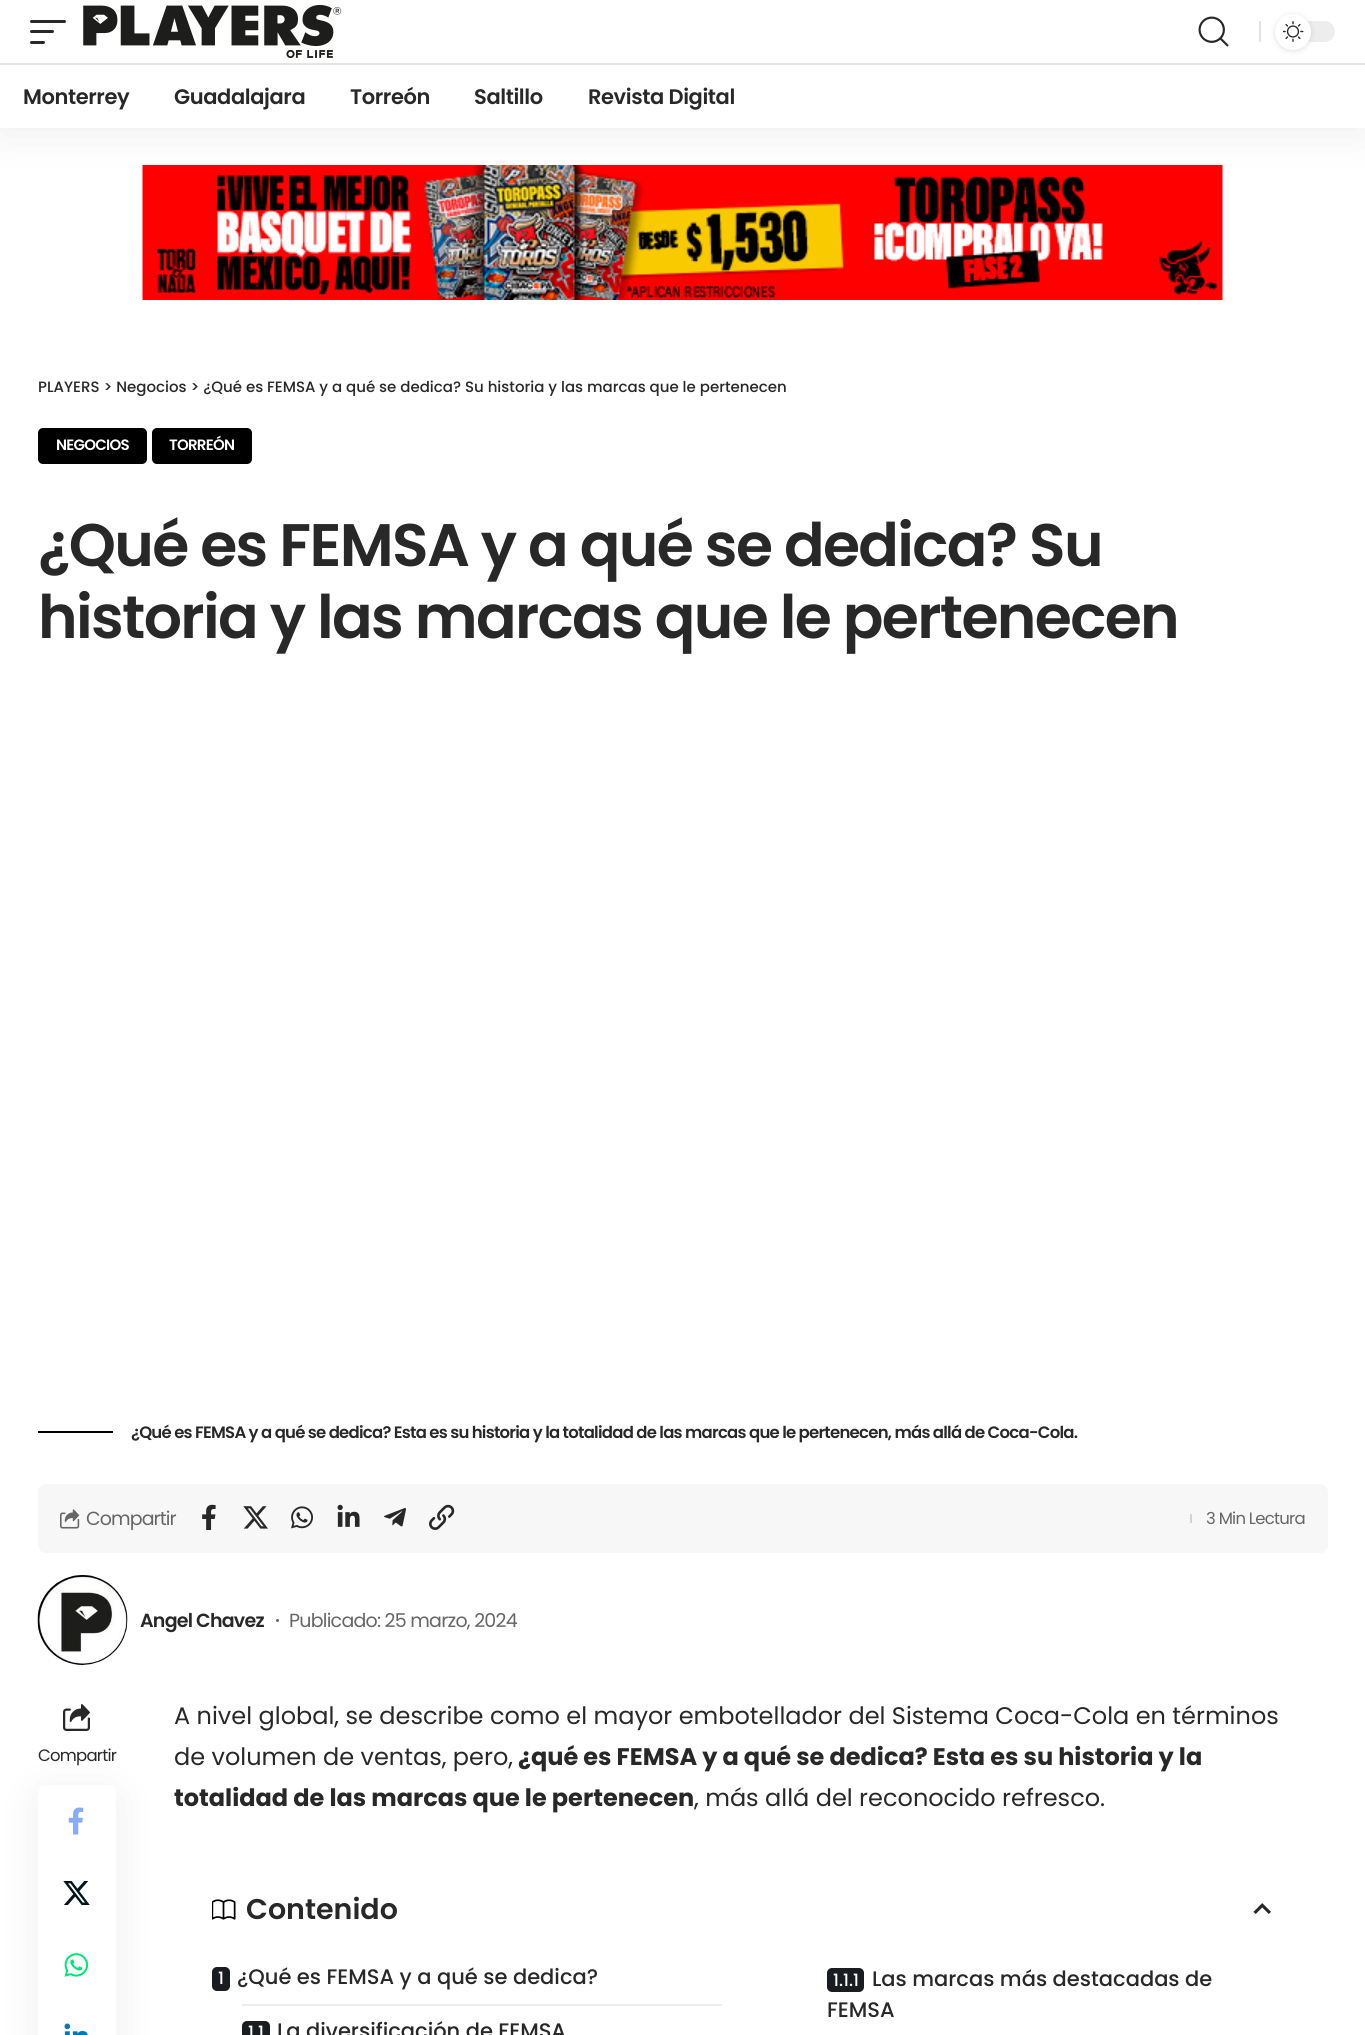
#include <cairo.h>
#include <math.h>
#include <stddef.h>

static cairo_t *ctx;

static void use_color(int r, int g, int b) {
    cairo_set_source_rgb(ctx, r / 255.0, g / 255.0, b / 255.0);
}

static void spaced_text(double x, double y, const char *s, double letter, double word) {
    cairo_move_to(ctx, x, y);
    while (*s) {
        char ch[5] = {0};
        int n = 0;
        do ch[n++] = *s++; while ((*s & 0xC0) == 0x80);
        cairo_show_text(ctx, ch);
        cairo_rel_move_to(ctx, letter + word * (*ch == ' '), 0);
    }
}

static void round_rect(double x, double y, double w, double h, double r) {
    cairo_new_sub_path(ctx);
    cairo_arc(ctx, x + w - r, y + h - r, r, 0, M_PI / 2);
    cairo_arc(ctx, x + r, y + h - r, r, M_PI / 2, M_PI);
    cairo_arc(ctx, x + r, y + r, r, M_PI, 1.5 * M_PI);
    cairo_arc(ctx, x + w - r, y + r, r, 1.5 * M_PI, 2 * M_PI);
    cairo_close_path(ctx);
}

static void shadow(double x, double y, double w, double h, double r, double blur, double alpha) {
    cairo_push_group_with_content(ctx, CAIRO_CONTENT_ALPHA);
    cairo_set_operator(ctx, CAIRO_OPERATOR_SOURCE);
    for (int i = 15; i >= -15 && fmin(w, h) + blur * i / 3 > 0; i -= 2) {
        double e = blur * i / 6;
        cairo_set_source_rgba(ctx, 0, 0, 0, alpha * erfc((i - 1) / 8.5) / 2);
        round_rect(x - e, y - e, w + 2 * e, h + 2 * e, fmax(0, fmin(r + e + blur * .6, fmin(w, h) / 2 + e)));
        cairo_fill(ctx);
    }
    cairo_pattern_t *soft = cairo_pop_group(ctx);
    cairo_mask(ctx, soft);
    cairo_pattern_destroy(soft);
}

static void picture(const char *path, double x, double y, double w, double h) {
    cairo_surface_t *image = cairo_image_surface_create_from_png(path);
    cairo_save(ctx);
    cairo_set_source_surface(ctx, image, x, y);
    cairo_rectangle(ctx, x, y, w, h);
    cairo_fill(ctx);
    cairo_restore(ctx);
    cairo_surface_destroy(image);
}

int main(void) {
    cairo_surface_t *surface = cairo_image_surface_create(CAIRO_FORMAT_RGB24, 1365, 2035);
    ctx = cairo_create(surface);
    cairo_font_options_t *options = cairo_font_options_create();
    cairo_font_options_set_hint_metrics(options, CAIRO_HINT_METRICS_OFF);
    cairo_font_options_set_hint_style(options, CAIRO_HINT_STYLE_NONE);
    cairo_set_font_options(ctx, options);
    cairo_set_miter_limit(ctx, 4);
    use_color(255, 255, 255);
    cairo_paint(ctx);
    picture("img4.png", 142, 165, 1081, 135);
    use_color(0, 0, 0);
    shadow(0, 6, 1365, 128, 0, 22.5, 0.07);
    use_color(255, 255, 255);
    cairo_rectangle(ctx, 0, 0, 1365, 128);
    cairo_fill(ctx);
    use_color(40, 40, 40);
    round_rect(30, 20, 36, 3, 1.5);
    cairo_fill(ctx);
    round_rect(30, 30, 24, 3, 1.5);
    cairo_fill(ctx);
    round_rect(30, 41, 15, 3, 1.5);
    cairo_fill(ctx);
    picture("img1.png", 83, 4, 259, 55);
    picture("img2.png", 1198, 16, 31, 31);
    use_color(228, 228, 228);
    cairo_rectangle(ctx, 1259, 21, 2, 21);
    cairo_fill(ctx);
    use_color(237, 237, 237);
    round_rect(1275, 21, 60, 21, 10.5);
    cairo_fill(ctx);
    use_color(0, 0, 0);
    shadow(1275, 15, 36, 36, 18, 3, 0.12);
    use_color(255, 255, 255);
    cairo_arc(ctx, 1293, 32, 18, 0, 2 * M_PI);
    cairo_fill(ctx);
    picture("img3.png", 1283, 21, 21, 21);
    use_color(228, 228, 228);
    cairo_rectangle(ctx, 0, 63, 1365, 2);
    cairo_fill(ctx);
    cairo_select_font_face(ctx, "Poppins SemiBold", CAIRO_FONT_SLANT_NORMAL, CAIRO_FONT_WEIGHT_NORMAL);
    cairo_set_font_size(ctx, 21);
    use_color(40, 40, 40);
    spaced_text(23, 104, "Monterrey", -0.4, 0);
    spaced_text(174, 104, "Guadalajara", -0.4, 0);
    spaced_text(350, 104, "Torreón", -0.4, 0);
    spaced_text(474, 104, "Saltillo", -0.4, 0);
    spaced_text(588, 104, "Revista Digital", -0.4, 0);
    cairo_select_font_face(ctx, "Poppins Medium", CAIRO_FONT_SLANT_NORMAL, CAIRO_FONT_WEIGHT_NORMAL);
    cairo_set_font_size(ctx, 15);
    cairo_move_to(ctx, 38, 392);
    cairo_show_text(ctx, "PLAYERS > Negocios > ¿Qué es FEMSA y a qué se dedica? Su historia y las marcas que le pertenecen");
    use_color(0, 0, 0);
    round_rect(38, 428, 109, 36, 5);
    cairo_fill(ctx);
    cairo_select_font_face(ctx, "Poppins SemiBold", CAIRO_FONT_SLANT_NORMAL, CAIRO_FONT_WEIGHT_NORMAL);
    use_color(255, 255, 255);
    spaced_text(56, 450, "NEGOCIOS", -0.75, 0);
    use_color(0, 0, 0);
    round_rect(152, 428, 100, 36, 5);
    cairo_fill(ctx);
    use_color(255, 255, 255);
    spaced_text(169, 450, "TORREÓN", -0.75, 0);
    cairo_set_font_size(ctx, 60);
    use_color(40, 40, 40);
    spaced_text(38, 566, "¿Qué es FEMSA y a qué se dedica? Su", -1.65, 0);
    spaced_text(38, 638, "historia y las marcas que le pertenecen", -1.65, 0);
    use_color(0, 0, 0);
    cairo_rectangle(ctx, 38, 1431, 75, 2);
    cairo_fill(ctx);
    cairo_set_font_size(ctx, 16.5);
    use_color(40, 40, 40);
    spaced_text(131, 1438, "¿Qué es FEMSA y a qué se dedica? Esta es su historia y la totalidad de las marcas que le pertenecen, más allá de Coca-Cola.", -0.75, 0);
    use_color(247, 247, 247);
    round_rect(38, 1484, 1290, 69, 8);
    cairo_fill(ctx);
    picture("img5.png", 60, 1509, 20, 20);
    cairo_select_font_face(ctx, "Poppins", CAIRO_FONT_SLANT_NORMAL, CAIRO_FONT_WEIGHT_NORMAL);
    cairo_set_font_size(ctx, 19);
    use_color(102, 102, 102);
    spaced_text(86, 1525, "Compartir", -0.9, 0);
    picture("img6.png", 202, 1504, 14, 26);
    picture("img7.png", 243, 1506, 25, 23);
    picture("img8.png", 291, 1506, 23, 23);
    picture("img9.png", 337, 1504, 23, 23);
    picture("img10.png", 384, 1508, 22, 19);
    picture("img11.png", 429, 1504, 26, 26);
    use_color(211, 211, 211);
    cairo_rectangle(ctx, 1190, 1514, 2, 9);
    cairo_fill(ctx);
    cairo_set_font_size(ctx, 16.5);
    use_color(102, 102, 102);
    spaced_text(1206, 1524, "3 Min Lectura", -0.75, 0);
    picture("img12.png", 37, 1575, 91, 90);
    cairo_select_font_face(ctx, "Poppins SemiBold", CAIRO_FONT_SLANT_NORMAL, CAIRO_FONT_WEIGHT_NORMAL);
    cairo_set_font_size(ctx, 19);
    use_color(40, 40, 40);
    spaced_text(140, 1627, "Angel Chavez", -0.75, 0);
    use_color(102, 102, 102);
    cairo_new_path(ctx);
    cairo_arc(ctx, 277.5, 1620.5, 1.5, 0, 2 * M_PI);
    cairo_fill(ctx);
    cairo_select_font_face(ctx, "Poppins", CAIRO_FONT_SLANT_NORMAL, CAIRO_FONT_WEIGHT_NORMAL);
    spaced_text(289, 1627, "Publicado: 25 marzo, 2024", -0.75, 0);
    use_color(0, 0, 0);
    shadow(38, 1793, 78, 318, 8, 22.5, 0.07);
    use_color(255, 255, 255);
    round_rect(38, 1785, 78, 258, 8);
    cairo_fill(ctx);
    picture("img13.png", 68, 1807, 16, 28);
    picture("img14.png", 63, 1881, 27, 24);
    picture("img15.png", 64, 1953, 25, 24);
    picture("img16.png", 64, 2023, 24, 12);
    picture("img17.png", 63, 1704, 27, 27);
    cairo_set_font_size(ctx, 16.5);
    use_color(40, 40, 40);
    spaced_text(38, 1761, "Compartir", -0.75, 0);
    cairo_set_font_size(ctx, 24);
    cairo_move_to(ctx, 174, 1724);
    cairo_show_text(ctx, "A nivel global, se describe como el mayor embotellador del Sistema Coca-Cola en términos");
    cairo_move_to(ctx, 174, 1765);
    cairo_show_text(ctx, "de volumen de ventas, pero,");
    cairo_select_font_face(ctx, "Poppins", CAIRO_FONT_SLANT_NORMAL, CAIRO_FONT_WEIGHT_BOLD);
    cairo_move_to(ctx, 518, 1765);
    cairo_show_text(ctx, "¿qué es FEMSA y a qué se dedica? Esta es su historia y la");
    cairo_move_to(ctx, 174, 1806);
    cairo_show_text(ctx, "totalidad de las marcas que le pertenecen");
    cairo_select_font_face(ctx, "Poppins", CAIRO_FONT_SLANT_NORMAL, CAIRO_FONT_WEIGHT_NORMAL);
    cairo_move_to(ctx, 694, 1806);
    cairo_show_text(ctx, ", más allá del reconocido refresco.");
    picture("img18.png", 212, 1899, 24, 21);
    cairo_select_font_face(ctx, "Poppins SemiBold", CAIRO_FONT_SLANT_NORMAL, CAIRO_FONT_WEIGHT_NORMAL);
    cairo_set_font_size(ctx, 28.5);
    cairo_move_to(ctx, 246, 1919);
    cairo_show_text(ctx, "Contenido");
    picture("img19.png", 1253, 1903, 18, 11);
    use_color(25, 28, 32);
    round_rect(212, 1967, 18, 24, 5);
    cairo_fill(ctx);
    cairo_select_font_face(ctx, "Poppins Medium", CAIRO_FONT_SLANT_NORMAL, CAIRO_FONT_WEIGHT_NORMAL);
    cairo_set_font_size(ctx, 17);
    use_color(255, 255, 255);
    cairo_move_to(ctx, 218, 1984);
    cairo_show_text(ctx, "1");
    cairo_set_font_size(ctx, 21);
    use_color(40, 40, 40);
    cairo_move_to(ctx, 237, 1984);
    cairo_show_text(ctx, "¿Qué es FEMSA y a qué se dedica?");
    use_color(25, 28, 32);
    round_rect(827, 1968, 37, 24, 5);
    cairo_fill(ctx);
    cairo_set_font_size(ctx, 17);
    use_color(255, 255, 255);
    cairo_move_to(ctx, 833, 1986);
    cairo_show_text(ctx, "1.1.1");
    cairo_set_font_size(ctx, 21);
    use_color(40, 40, 40);
    cairo_move_to(ctx, 872, 1986);
    cairo_show_text(ctx, "Las marcas más destacadas de");
    cairo_move_to(ctx, 827, 2017);
    cairo_show_text(ctx, "FEMSA");
    use_color(237, 237, 237);
    cairo_rectangle(ctx, 242, 2004, 480, 2);
    cairo_fill(ctx);
    use_color(25, 28, 32);
    round_rect(242, 2021, 28, 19, 5);
    cairo_fill(ctx);
    cairo_set_font_size(ctx, 17);
    use_color(255, 255, 255);
    cairo_move_to(ctx, 248, 2038);
    cairo_show_text(ctx, "1");
    cairo_move_to(ctx, 258, 2038);
    cairo_show_text(ctx, "1");
    cairo_set_font_size(ctx, 21);
    use_color(40, 40, 40);
    cairo_move_to(ctx, 277, 2038);
    cairo_show_text(ctx, "La diversificación de FEMSA");
    cairo_surface_write_to_png(surface, "result.png");
    cairo_font_options_destroy(options);
    cairo_destroy(ctx);
    cairo_surface_destroy(surface);
    return 0;
}
